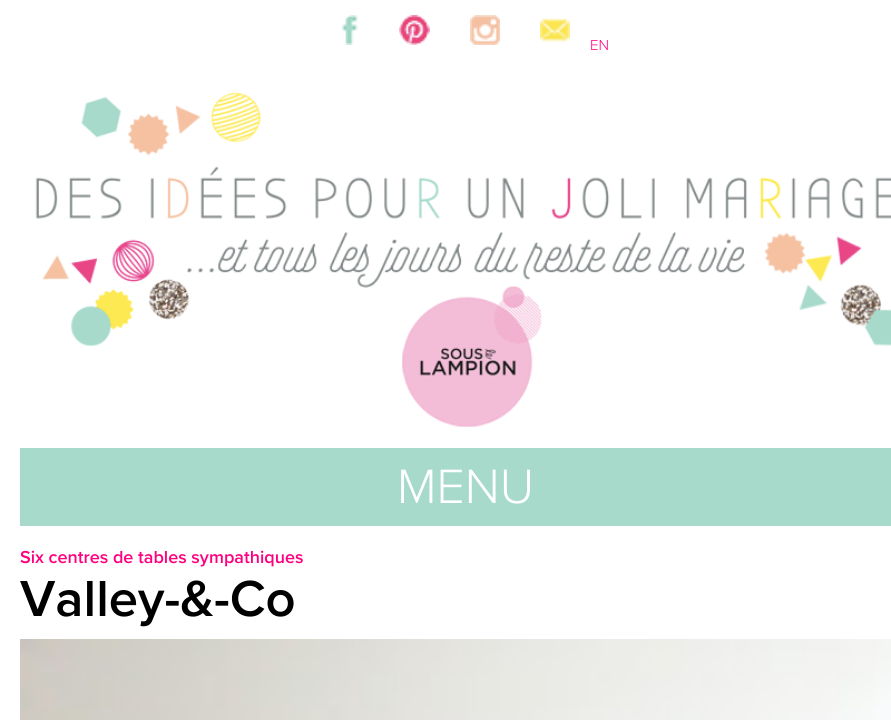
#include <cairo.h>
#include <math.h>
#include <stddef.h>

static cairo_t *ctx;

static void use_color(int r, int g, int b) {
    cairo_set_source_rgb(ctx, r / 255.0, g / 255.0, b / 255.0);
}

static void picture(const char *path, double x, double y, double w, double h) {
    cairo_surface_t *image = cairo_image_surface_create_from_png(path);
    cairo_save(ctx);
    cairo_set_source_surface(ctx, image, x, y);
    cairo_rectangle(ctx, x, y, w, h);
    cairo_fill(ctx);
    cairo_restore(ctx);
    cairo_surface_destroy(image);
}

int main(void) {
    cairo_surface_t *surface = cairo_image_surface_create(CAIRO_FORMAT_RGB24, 891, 720);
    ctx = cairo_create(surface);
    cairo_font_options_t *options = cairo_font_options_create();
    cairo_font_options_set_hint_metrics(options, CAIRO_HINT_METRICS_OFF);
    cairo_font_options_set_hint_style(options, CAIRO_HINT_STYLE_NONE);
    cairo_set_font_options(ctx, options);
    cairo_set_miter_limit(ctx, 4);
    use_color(255, 255, 255);
    cairo_paint(ctx);
    picture("img1.png", 342, 15, 16, 30);
    picture("img2.png", 399, 15, 31, 30);
    picture("img3.png", 470, 15, 30, 30);
    picture("img4.png", 540, 18, 30, 24);
    cairo_select_font_face(ctx, "Proxima Nova Light", CAIRO_FONT_SLANT_NORMAL, CAIRO_FONT_WEIGHT_NORMAL);
    cairo_set_font_size(ctx, 15);
    use_color(255, 0, 127);
    cairo_move_to(ctx, 590, 50);
    cairo_show_text(ctx, "EN");
    picture("img5.png", 35, 92, 856, 335);
    use_color(167, 218, 202);
    cairo_rectangle(ctx, 20, 448, 871, 78);
    cairo_fill(ctx);
    cairo_set_font_size(ctx, 50);
    use_color(255, 255, 255);
    cairo_move_to(ctx, 397, 503);
    cairo_show_text(ctx, "MENU");
    cairo_select_font_face(ctx, "Proxima Nova SemiBold", CAIRO_FONT_SLANT_NORMAL, CAIRO_FONT_WEIGHT_NORMAL);
    cairo_set_font_size(ctx, 18);
    use_color(255, 0, 127);
    cairo_move_to(ctx, 20, 563);
    cairo_show_text(ctx, "Six centres de tables sympathiques");
    cairo_set_font_size(ctx, 52.5);
    use_color(0, 0, 0);
    cairo_move_to(ctx, 20, 616);
    cairo_show_text(ctx, "Valley-&-Co");
    picture("img6.png", 20, 639, 871, 81);
    cairo_surface_write_to_png(surface, "result.png");
    cairo_font_options_destroy(options);
    cairo_destroy(ctx);
    cairo_surface_destroy(surface);
    return 0;
}
